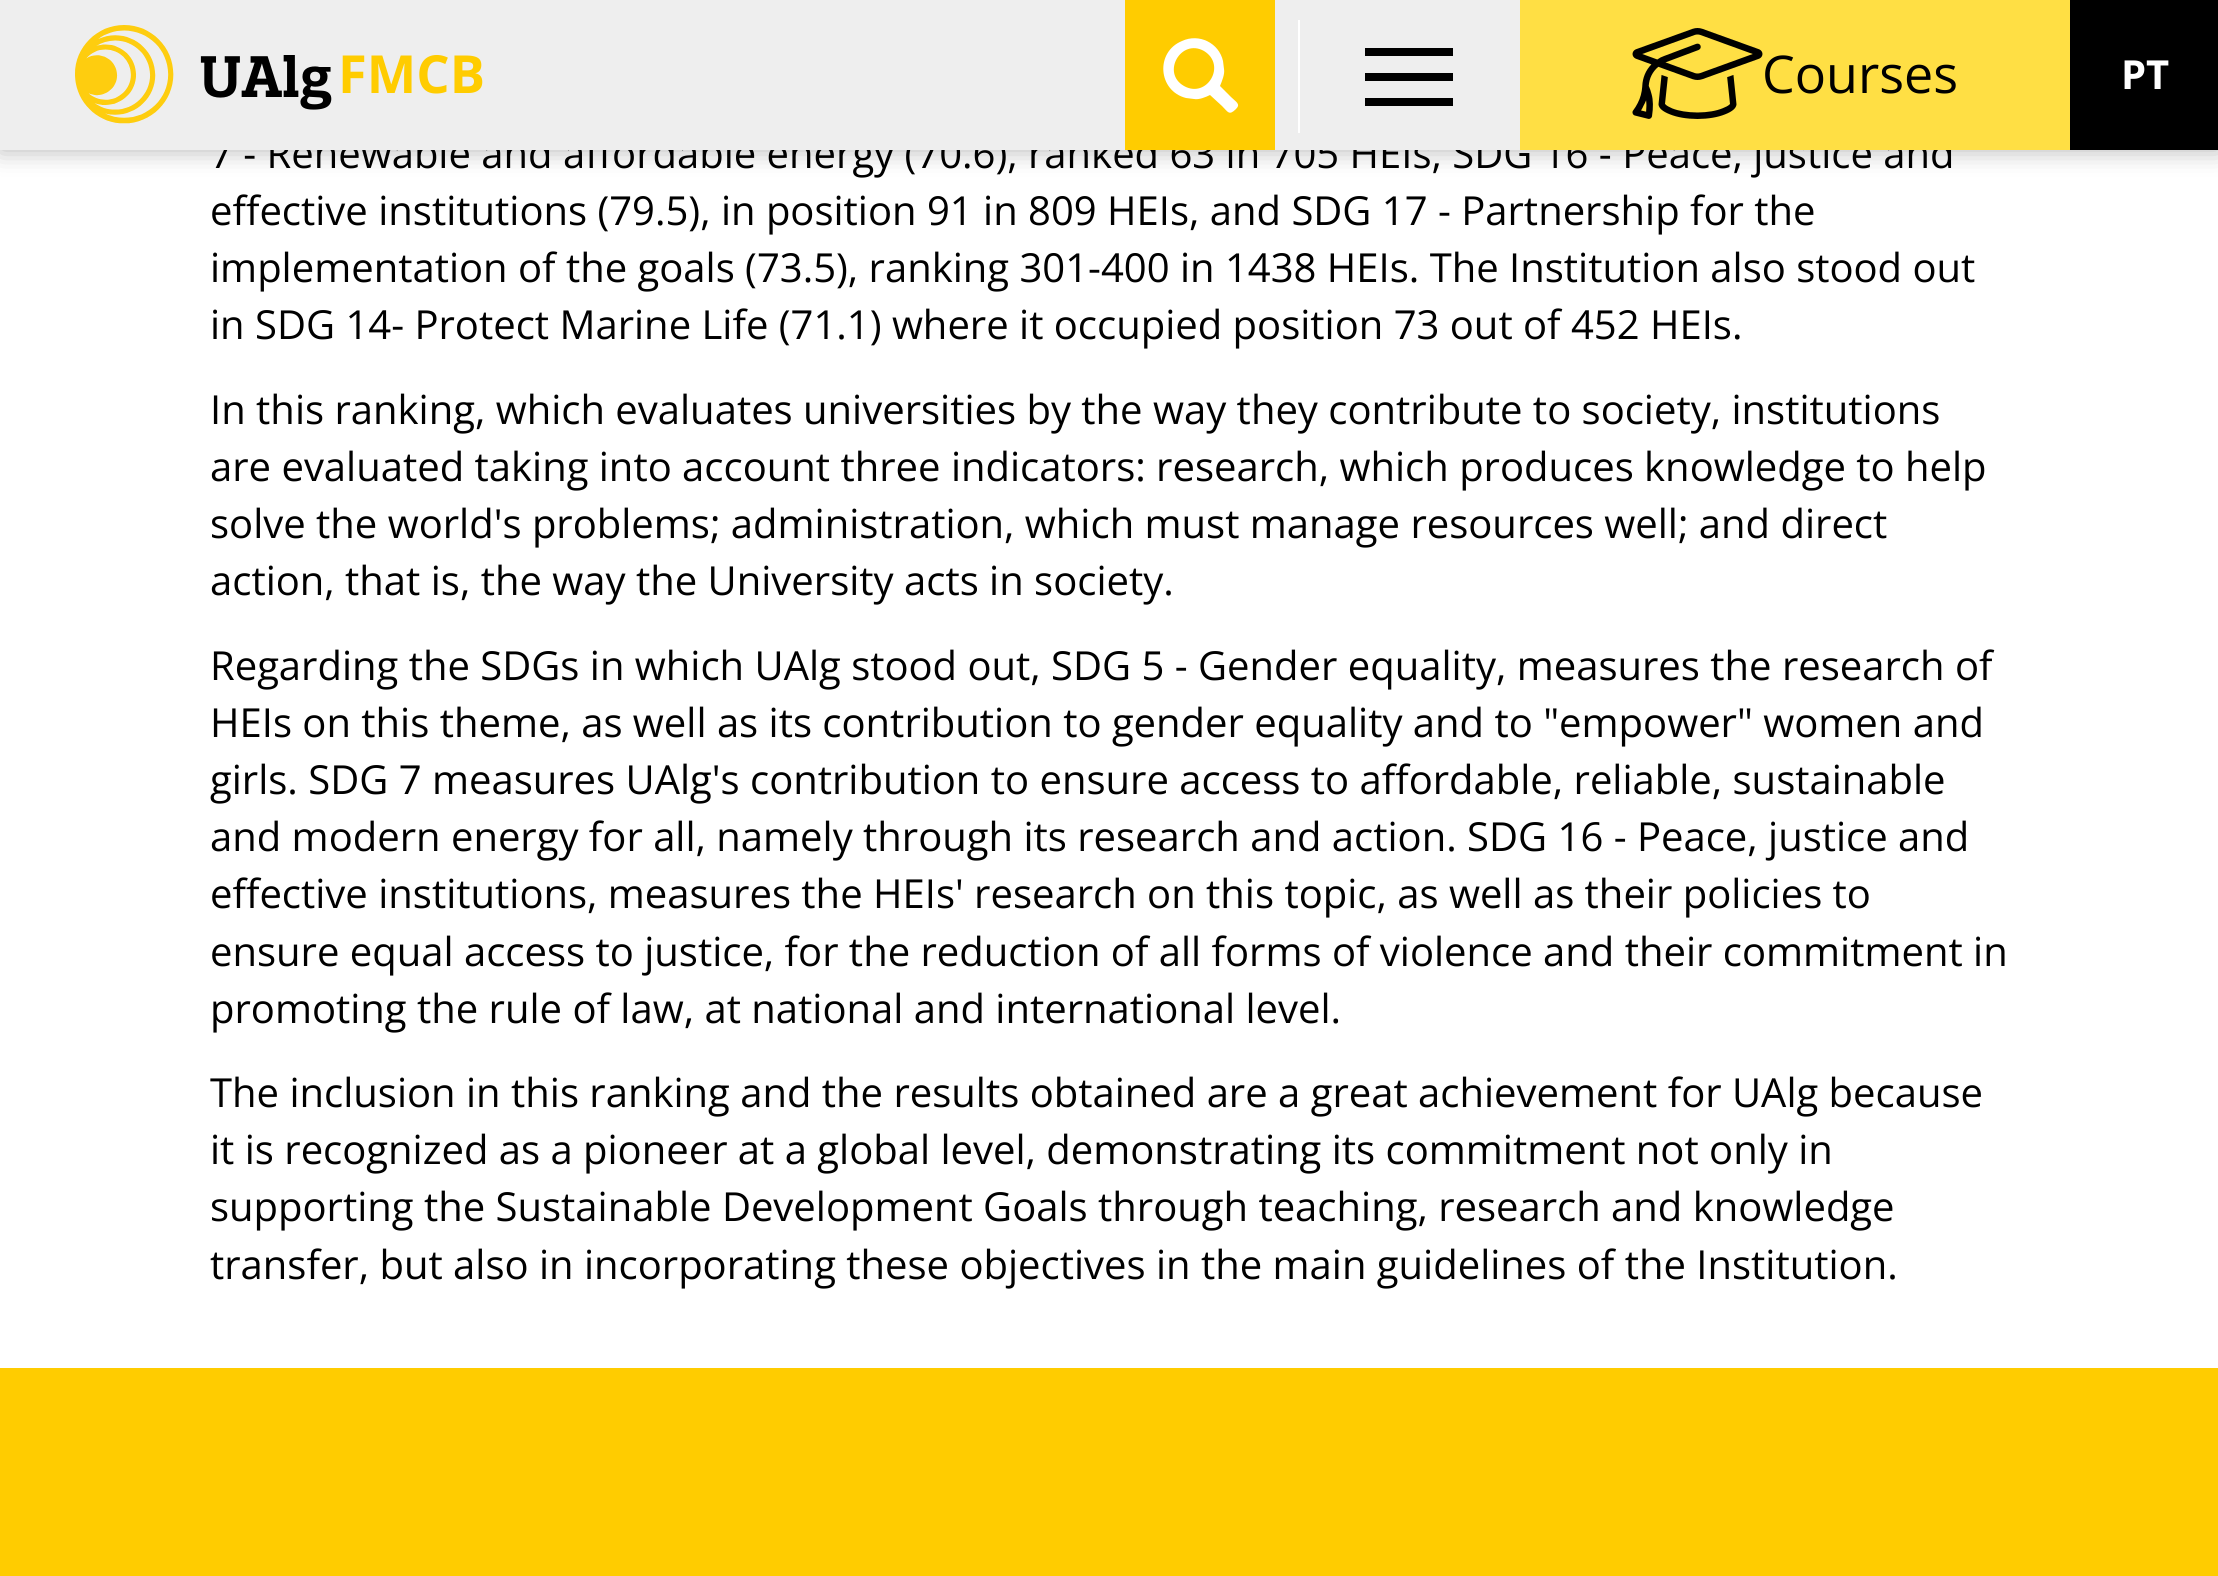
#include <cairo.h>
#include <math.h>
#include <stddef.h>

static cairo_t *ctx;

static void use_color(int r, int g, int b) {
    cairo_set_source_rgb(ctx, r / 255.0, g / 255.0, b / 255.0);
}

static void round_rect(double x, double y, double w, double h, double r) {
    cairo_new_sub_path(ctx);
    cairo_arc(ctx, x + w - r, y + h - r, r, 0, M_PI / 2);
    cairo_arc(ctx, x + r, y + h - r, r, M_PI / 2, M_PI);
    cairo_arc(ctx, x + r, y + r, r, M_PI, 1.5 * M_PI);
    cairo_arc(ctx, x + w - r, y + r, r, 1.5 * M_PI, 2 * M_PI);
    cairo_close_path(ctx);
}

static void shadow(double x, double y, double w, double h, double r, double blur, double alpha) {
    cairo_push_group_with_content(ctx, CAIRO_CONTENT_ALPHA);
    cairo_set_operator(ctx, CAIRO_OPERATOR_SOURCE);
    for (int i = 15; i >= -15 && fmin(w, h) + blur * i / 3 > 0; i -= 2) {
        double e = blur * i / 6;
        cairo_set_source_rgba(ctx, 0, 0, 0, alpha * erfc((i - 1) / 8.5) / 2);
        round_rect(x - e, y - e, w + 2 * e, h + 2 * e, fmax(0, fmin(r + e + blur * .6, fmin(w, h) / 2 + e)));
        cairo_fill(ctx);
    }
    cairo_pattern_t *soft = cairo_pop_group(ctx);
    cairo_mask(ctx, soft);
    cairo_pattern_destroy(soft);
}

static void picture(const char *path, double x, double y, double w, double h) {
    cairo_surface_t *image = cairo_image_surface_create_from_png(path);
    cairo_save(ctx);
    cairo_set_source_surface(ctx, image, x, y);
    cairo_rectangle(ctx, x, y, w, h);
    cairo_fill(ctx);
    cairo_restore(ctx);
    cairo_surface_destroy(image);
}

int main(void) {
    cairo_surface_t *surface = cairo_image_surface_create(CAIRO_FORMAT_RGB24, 2218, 1576);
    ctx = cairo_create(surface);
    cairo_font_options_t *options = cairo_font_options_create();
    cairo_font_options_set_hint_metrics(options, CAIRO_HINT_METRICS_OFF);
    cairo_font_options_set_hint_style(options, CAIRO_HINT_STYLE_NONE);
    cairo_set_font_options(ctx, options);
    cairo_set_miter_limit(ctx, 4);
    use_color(255, 255, 255);
    cairo_paint(ctx);
    use_color(0, 0, 0);
    shadow(0, 0, 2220, 150, 0, 12.5, 0.3);
    cairo_select_font_face(ctx, "Open Sans", CAIRO_FONT_SLANT_NORMAL, CAIRO_FONT_WEIGHT_NORMAL);
    cairo_set_font_size(ctx, 40);
    use_color(0, 0, 0);
    cairo_move_to(ctx, 210, 168);
    cairo_show_text(ctx, "7 - Renewable and affordable energy (70.6), ranked 63 in 705 HEIs, SDG 16 - Peace, justice and");
    use_color(238, 238, 238);
    cairo_rectangle(ctx, 0, 0, 1520, 150);
    cairo_fill(ctx);
    picture("img1.png", 75, 25, 99, 99);
    cairo_select_font_face(ctx, "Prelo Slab", CAIRO_FONT_SLANT_NORMAL, CAIRO_FONT_WEIGHT_BOLD);
    cairo_set_font_size(ctx, 60);
    use_color(0, 0, 0);
    cairo_move_to(ctx, 200, 97);
    cairo_show_text(ctx, "UAlg");
    cairo_select_font_face(ctx, "Open Sans", CAIRO_FONT_SLANT_NORMAL, CAIRO_FONT_WEIGHT_BOLD);
    cairo_set_font_size(ctx, 52.5);
    use_color(255, 204, 0);
    cairo_move_to(ctx, 338, 93);
    cairo_show_text(ctx, "FMCB");
    cairo_rectangle(ctx, 1125, 0, 150, 150);
    cairo_fill(ctx);
    use_color(255, 255, 255);
    cairo_new_path(ctx);
    cairo_move_to(ctx, 1182, 41);
    cairo_curve_to(ctx, 1199, 33, 1219, 43, 1223, 61);
    cairo_line_to(ctx, 1224, 69);
    cairo_curve_to(ctx, 1225, 74, 1222, 81, 1220, 86);
    cairo_line_to(ctx, 1231, 97);
    cairo_curve_to(ctx, 1236, 102, 1241, 104, 1236, 109);
    cairo_curve_to(ctx, 1229, 116, 1228, 112, 1222, 106);
    cairo_line_to(ctx, 1210, 95);
    cairo_curve_to(ctx, 1206, 97, 1199, 100, 1194, 99);
    cairo_line_to(ctx, 1186, 98);
    cairo_curve_to(ctx, 1158, 91, 1155, 52, 1182, 41);
    cairo_close_path(ctx);
    cairo_move_to(ctx, 1204, 51);
    cairo_curve_to(ctx, 1181, 38, 1161, 73, 1184, 86);
    cairo_curve_to(ctx, 1207, 99, 1227, 65, 1204, 51);
    cairo_close_path(ctx);
    cairo_fill(ctx);
    cairo_rectangle(ctx, 1298, 20, 2, 113);
    cairo_fill(ctx);
    use_color(0, 0, 0);
    cairo_rectangle(ctx, 1365, 48, 88, 8);
    cairo_fill(ctx);
    cairo_rectangle(ctx, 1365, 73, 88, 8);
    cairo_fill(ctx);
    cairo_rectangle(ctx, 1365, 98, 88, 8);
    cairo_fill(ctx);
    use_color(255, 223, 68);
    cairo_rectangle(ctx, 1520, 0, 550, 150);
    cairo_fill(ctx);
    picture("img2.png", 1632, 28, 131, 91);
    cairo_select_font_face(ctx, "Open Sans", CAIRO_FONT_SLANT_NORMAL, CAIRO_FONT_WEIGHT_NORMAL);
    cairo_set_font_size(ctx, 52);
    use_color(0, 0, 0);
    cairo_move_to(ctx, 1762, 93);
    cairo_show_text(ctx, "Courses");
    cairo_rectangle(ctx, 2070, 0, 148, 150);
    cairo_fill(ctx);
    cairo_select_font_face(ctx, "Open Sans", CAIRO_FONT_SLANT_NORMAL, CAIRO_FONT_WEIGHT_BOLD);
    cairo_set_font_size(ctx, 40);
    use_color(255, 255, 255);
    cairo_move_to(ctx, 2121, 89);
    cairo_show_text(ctx, "PT");
    cairo_select_font_face(ctx, "Open Sans", CAIRO_FONT_SLANT_NORMAL, CAIRO_FONT_WEIGHT_NORMAL);
    use_color(0, 0, 0);
    cairo_move_to(ctx, 210, 225);
    cairo_show_text(ctx, "effective institutions (79.5), in position 91 in 809 HEIs, and SDG 17 - Partnership for the");
    cairo_move_to(ctx, 210, 282);
    cairo_show_text(ctx, "implementation of the goals (73.5), ranking 301-400 in 1438 HEIs. The Institution also stood out");
    cairo_move_to(ctx, 210, 339);
    cairo_show_text(ctx, "in SDG 14- Protect Marine Life (71.1) where it occupied position 73 out of 452 HEIs.");
    cairo_move_to(ctx, 210, 424);
    cairo_show_text(ctx, "In this ranking, which evaluates universities by the way they contribute to society, institutions");
    cairo_move_to(ctx, 210, 481);
    cairo_show_text(ctx, "are evaluated taking into account three indicators: research, which produces knowledge to help");
    cairo_move_to(ctx, 210, 538);
    cairo_show_text(ctx, "solve the world's problems; administration, which must manage resources well; and direct");
    cairo_move_to(ctx, 210, 595);
    cairo_show_text(ctx, "action, that is, the way the University acts in society.");
    cairo_move_to(ctx, 210, 680);
    cairo_show_text(ctx, "Regarding the SDGs in which UAlg stood out, SDG 5 - Gender equality, measures the research of");
    cairo_move_to(ctx, 210, 737);
    cairo_show_text(ctx, "HEIs on this theme, as well as its contribution to gender equality and to \"empower\" women and");
    cairo_move_to(ctx, 210, 794);
    cairo_show_text(ctx, "girls. SDG 7 measures UAlg's contribution to ensure access to affordable, reliable, sustainable");
    cairo_move_to(ctx, 210, 851);
    cairo_show_text(ctx, "and modern energy for all, namely through its research and action. SDG 16 - Peace, justice and");
    cairo_move_to(ctx, 210, 908);
    cairo_show_text(ctx, "effective institutions, measures the HEIs' research on this topic, as well as their policies to");
    cairo_move_to(ctx, 210, 966);
    cairo_show_text(ctx, "ensure equal access to justice, for the reduction of all forms of violence and their commitment in");
    cairo_move_to(ctx, 210, 1023);
    cairo_show_text(ctx, "promoting the rule of law, at national and international level.");
    cairo_move_to(ctx, 210, 1107);
    cairo_show_text(ctx, "The inclusion in this ranking and the results obtained are a great achievement for UAlg because");
    cairo_move_to(ctx, 210, 1164);
    cairo_show_text(ctx, "it is recognized as a pioneer at a global level, demonstrating its commitment not only in");
    cairo_move_to(ctx, 210, 1221);
    cairo_show_text(ctx, "supporting the Sustainable Development Goals through teaching, research and knowledge");
    cairo_move_to(ctx, 210, 1279);
    cairo_show_text(ctx, "transfer, but also in incorporating these objectives in the main guidelines of the Institution.");
    use_color(255, 204, 0);
    cairo_rectangle(ctx, 0, 1368, 2218, 208);
    cairo_fill(ctx);
    cairo_surface_write_to_png(surface, "result.png");
    cairo_font_options_destroy(options);
    cairo_destroy(ctx);
    cairo_surface_destroy(surface);
    return 0;
}
